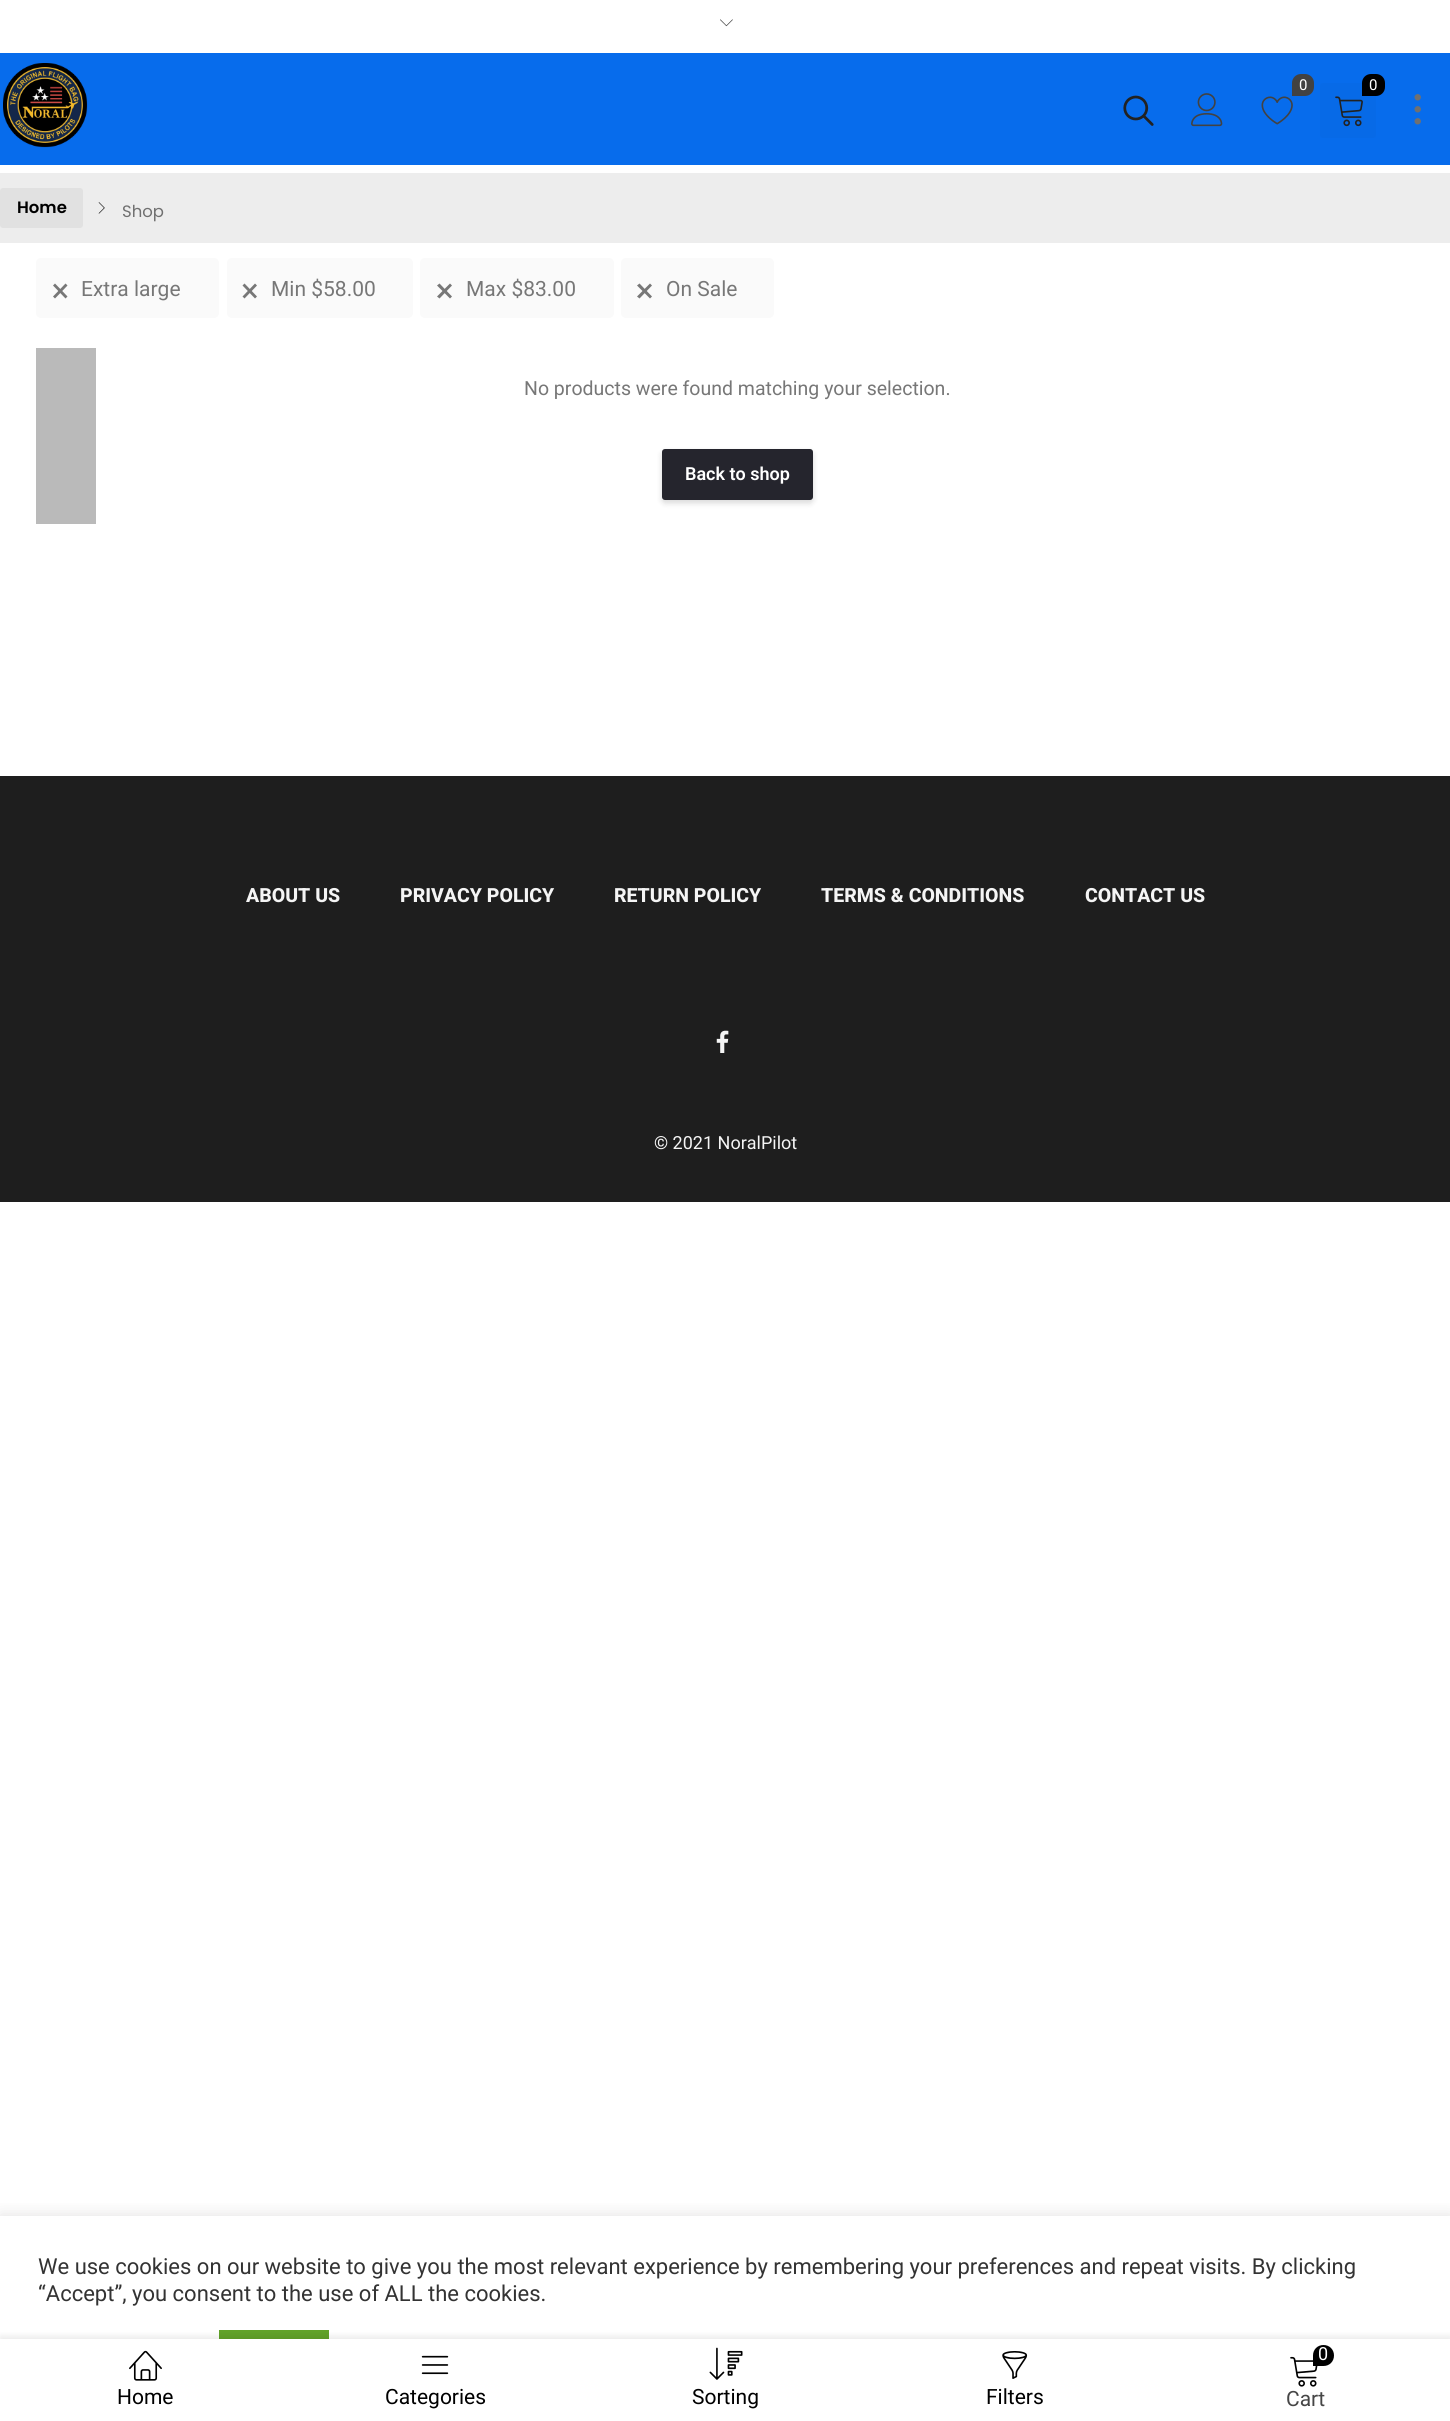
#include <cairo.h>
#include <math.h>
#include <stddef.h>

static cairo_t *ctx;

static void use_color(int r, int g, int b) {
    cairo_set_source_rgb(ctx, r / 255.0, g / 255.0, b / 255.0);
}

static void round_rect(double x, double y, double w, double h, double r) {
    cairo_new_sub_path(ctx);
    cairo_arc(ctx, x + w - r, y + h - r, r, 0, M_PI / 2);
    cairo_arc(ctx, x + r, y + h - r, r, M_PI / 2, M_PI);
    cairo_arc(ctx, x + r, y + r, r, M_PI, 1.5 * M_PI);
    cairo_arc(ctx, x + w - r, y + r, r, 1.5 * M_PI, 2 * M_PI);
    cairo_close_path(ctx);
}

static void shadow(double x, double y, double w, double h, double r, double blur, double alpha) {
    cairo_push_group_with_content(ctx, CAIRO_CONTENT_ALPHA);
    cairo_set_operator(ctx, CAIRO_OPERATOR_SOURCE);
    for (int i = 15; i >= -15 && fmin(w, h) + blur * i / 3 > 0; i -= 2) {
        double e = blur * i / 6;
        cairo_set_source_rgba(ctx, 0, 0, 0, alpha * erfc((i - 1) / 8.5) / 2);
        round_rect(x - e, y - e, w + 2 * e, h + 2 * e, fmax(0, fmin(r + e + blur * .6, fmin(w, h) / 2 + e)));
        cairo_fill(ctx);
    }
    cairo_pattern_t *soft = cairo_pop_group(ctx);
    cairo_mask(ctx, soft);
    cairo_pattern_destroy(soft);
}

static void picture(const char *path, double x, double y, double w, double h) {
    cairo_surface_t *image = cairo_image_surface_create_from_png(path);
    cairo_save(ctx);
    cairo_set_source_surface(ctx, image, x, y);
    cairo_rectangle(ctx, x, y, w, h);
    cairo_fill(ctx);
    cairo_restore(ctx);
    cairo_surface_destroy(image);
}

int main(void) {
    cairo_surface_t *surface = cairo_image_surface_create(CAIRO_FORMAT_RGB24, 1450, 2421);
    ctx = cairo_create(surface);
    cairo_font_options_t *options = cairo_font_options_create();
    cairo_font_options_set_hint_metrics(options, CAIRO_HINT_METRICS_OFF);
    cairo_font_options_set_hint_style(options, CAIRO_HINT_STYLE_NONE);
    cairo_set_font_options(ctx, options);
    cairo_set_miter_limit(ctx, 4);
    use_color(255, 255, 255);
    cairo_paint(ctx);
    picture("img1.png", 720, 19, 13, 8);
    use_color(7, 108, 236);
    cairo_rectangle(ctx, 0, 53, 1450, 112);
    cairo_fill(ctx);
    picture("img2.png", 3, 63, 85, 85);
    use_color(66, 66, 66);
    cairo_new_path(ctx);
    cairo_move_to(ctx, 1301, 74);
    cairo_line_to(ctx, 1305, 74);
    cairo_curve_to(ctx, 1310, 74, 1314, 78, 1314, 83);
    cairo_line_to(ctx, 1314, 87);
    cairo_curve_to(ctx, 1314, 92, 1310, 96, 1305, 96);
    cairo_line_to(ctx, 1292, 96);
    cairo_line_to(ctx, 1292, 83);
    cairo_curve_to(ctx, 1292, 78, 1296, 74, 1301, 74);
    cairo_close_path(ctx);
    cairo_fill(ctx);
    cairo_select_font_face(ctx, "Roboto", CAIRO_FONT_SLANT_NORMAL, CAIRO_FONT_WEIGHT_NORMAL);
    cairo_set_font_size(ctx, 15);
    use_color(255, 255, 255);
    cairo_move_to(ctx, 1299, 90);
    cairo_show_text(ctx, "0");
    picture("img3.png", 1261, 96, 32, 29);
    use_color(7, 106, 231);
    round_rect(1320, 83, 56, 55, 3);
    cairo_fill(ctx);
    use_color(0, 0, 0);
    cairo_new_path(ctx);
    cairo_move_to(ctx, 1371, 74);
    cairo_line_to(ctx, 1376, 74);
    cairo_curve_to(ctx, 1381, 74, 1385, 78, 1385, 83);
    cairo_line_to(ctx, 1385, 87);
    cairo_curve_to(ctx, 1385, 92, 1381, 96, 1376, 96);
    cairo_line_to(ctx, 1362, 96);
    cairo_line_to(ctx, 1362, 83);
    cairo_curve_to(ctx, 1362, 78, 1366, 74, 1371, 74);
    cairo_close_path(ctx);
    cairo_fill(ctx);
    use_color(255, 255, 255);
    cairo_move_to(ctx, 1369, 90);
    cairo_show_text(ctx, "0");
    picture("img4.png", 1335, 96, 28, 31);
    picture("img5.png", 1123, 95, 31, 31);
    picture("img6.png", 1191, 93, 32, 34);
    picture("img7.png", 1414, 94, 7, 7);
    picture("img7.png", 1414, 106, 7, 7);
    picture("img7.png", 1414, 118, 7, 7);
    use_color(237, 237, 237);
    cairo_rectangle(ctx, 0, 173, 1450, 70);
    cairo_fill(ctx);
    use_color(225, 225, 225);
    round_rect(0, 188, 83, 40, 3);
    cairo_fill(ctx);
    cairo_select_font_face(ctx, "Poppins SemiBold", CAIRO_FONT_SLANT_NORMAL, CAIRO_FONT_WEIGHT_NORMAL);
    cairo_set_font_size(ctx, 16.5);
    use_color(0, 0, 0);
    cairo_move_to(ctx, 17, 213);
    cairo_show_text(ctx, "Home");
    picture("img8.png", 98, 202, 7, 12);
    cairo_select_font_face(ctx, "Poppins", CAIRO_FONT_SLANT_NORMAL, CAIRO_FONT_WEIGHT_NORMAL);
    use_color(112, 112, 112);
    cairo_move_to(ctx, 122, 217);
    cairo_show_text(ctx, "Shop");
    use_color(250, 250, 250);
    round_rect(36, 258, 183, 60, 5);
    cairo_fill(ctx);
    use_color(119, 119, 119);
    cairo_new_path(ctx);
    cairo_move_to(ctx, 55, 283.5);
    cairo_line_to(ctx, 67.5, 296.5);
    cairo_line_to(ctx, 65.5, 298.5);
    cairo_line_to(ctx, 53, 285.5);
    cairo_close_path(ctx);
    cairo_fill(ctx);
    cairo_select_font_face(ctx, "Roboto", CAIRO_FONT_SLANT_NORMAL, CAIRO_FONT_WEIGHT_NORMAL);
    cairo_set_font_size(ctx, 21);
    cairo_move_to(ctx, 81, 296);
    cairo_show_text(ctx, "Extra large");
    cairo_new_path(ctx);
    cairo_move_to(ctx, 65.5, 283.5);
    cairo_line_to(ctx, 67.5, 285.5);
    cairo_line_to(ctx, 55, 298.5);
    cairo_line_to(ctx, 53, 296.5);
    cairo_close_path(ctx);
    cairo_fill(ctx);
    use_color(250, 250, 250);
    round_rect(227, 258, 186, 60, 5);
    cairo_fill(ctx);
    use_color(119, 119, 119);
    cairo_new_path(ctx);
    cairo_move_to(ctx, 244.5, 283.5);
    cairo_line_to(ctx, 257, 296.5);
    cairo_line_to(ctx, 255, 298.5);
    cairo_line_to(ctx, 242.5, 285.5);
    cairo_close_path(ctx);
    cairo_fill(ctx);
    cairo_move_to(ctx, 271, 296);
    cairo_show_text(ctx, "Min $58.00");
    cairo_new_path(ctx);
    cairo_move_to(ctx, 255, 283.5);
    cairo_line_to(ctx, 257, 285.5);
    cairo_line_to(ctx, 244.5, 298.5);
    cairo_line_to(ctx, 242.5, 296.5);
    cairo_close_path(ctx);
    cairo_fill(ctx);
    use_color(250, 250, 250);
    round_rect(420, 258, 194, 60, 5);
    cairo_fill(ctx);
    use_color(119, 119, 119);
    cairo_new_path(ctx);
    cairo_move_to(ctx, 439.5, 283.5);
    cairo_line_to(ctx, 452, 296.5);
    cairo_line_to(ctx, 450, 298.5);
    cairo_line_to(ctx, 437, 285.5);
    cairo_close_path(ctx);
    cairo_fill(ctx);
    cairo_move_to(ctx, 466, 296);
    cairo_show_text(ctx, "Max $83.00");
    cairo_new_path(ctx);
    cairo_move_to(ctx, 450, 283.5);
    cairo_line_to(ctx, 452, 285.5);
    cairo_line_to(ctx, 439.5, 298.5);
    cairo_line_to(ctx, 437, 296.5);
    cairo_close_path(ctx);
    cairo_fill(ctx);
    use_color(250, 250, 250);
    round_rect(621, 258, 153, 60, 5);
    cairo_fill(ctx);
    use_color(119, 119, 119);
    cairo_new_path(ctx);
    cairo_move_to(ctx, 639.5, 283.5);
    cairo_line_to(ctx, 652, 296.5);
    cairo_line_to(ctx, 650, 298.5);
    cairo_line_to(ctx, 637, 285.5);
    cairo_close_path(ctx);
    cairo_fill(ctx);
    cairo_move_to(ctx, 666, 296);
    cairo_show_text(ctx, "On Sale");
    cairo_new_path(ctx);
    cairo_move_to(ctx, 650, 283.5);
    cairo_line_to(ctx, 652, 285.5);
    cairo_line_to(ctx, 639.5, 298.5);
    cairo_line_to(ctx, 637, 296.5);
    cairo_close_path(ctx);
    cairo_fill(ctx);
    use_color(186, 186, 186);
    cairo_rectangle(ctx, 36, 348, 60, 176);
    cairo_fill(ctx);
    cairo_set_font_size(ctx, 19.5);
    use_color(119, 119, 119);
    cairo_move_to(ctx, 524, 395);
    cairo_show_text(ctx, "No products were found matching your selection.");
    use_color(0, 0, 0);
    shadow(662, 452, 151, 51, 3, 3, 0.15);
    use_color(37, 37, 45);
    round_rect(663, 450, 149, 49, 2);
    cairo_fill_preserve(ctx);
    cairo_stroke(ctx);
    cairo_select_font_face(ctx, "Roboto SemiBold", CAIRO_FONT_SLANT_NORMAL, CAIRO_FONT_WEIGHT_NORMAL);
    cairo_set_font_size(ctx, 18);
    use_color(255, 255, 255);
    cairo_move_to(ctx, 685, 480);
    cairo_show_text(ctx, "Back to shop");
    cairo_save(ctx);
    cairo_rectangle(ctx, 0, 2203, 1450, 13);
    cairo_clip(ctx);
    use_color(172, 171, 171);
    shadow(0, 2214, 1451, 206, 0, 7.5, 0.3);
    cairo_restore(ctx);
    use_color(97, 162, 41);
    cairo_rectangle(ctx, 219, 2330, 110, 9);
    cairo_fill(ctx);
    use_color(0, 0, 0);
    shadow(0, 2336, 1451, 82, 0, 3, 0.08);
    use_color(255, 255, 255);
    cairo_rectangle(ctx, 0, 2339, 1450, 82);
    cairo_fill(ctx);
    picture("img9.png", 129, 2350, 33, 31);
    cairo_select_font_face(ctx, "Roboto", CAIRO_FONT_SLANT_NORMAL, CAIRO_FONT_WEIGHT_NORMAL);
    cairo_set_font_size(ctx, 21);
    use_color(0, 0, 0);
    cairo_move_to(ctx, 117, 2404);
    cairo_show_text(ctx, "Home");
    picture("img10.png", 421, 2355, 28, 20);
    cairo_move_to(ctx, 385, 2404);
    cairo_show_text(ctx, "Categories");
    picture("img11.png", 709, 2347, 34, 33);
    cairo_move_to(ctx, 692, 2404);
    cairo_show_text(ctx, "Sorting");
    picture("img12.png", 1002, 2351, 26, 28);
    cairo_move_to(ctx, 986, 2404);
    cairo_show_text(ctx, "Filters");
    picture("img13.png", 1290, 2356, 28, 31);
    cairo_new_path(ctx);
    cairo_move_to(ctx, 1323.5, 2345);
    cairo_curve_to(ctx, 1329.5, 2345, 1334, 2349.5, 1334, 2355.5);
    cairo_curve_to(ctx, 1334, 2361.5, 1329.5, 2366, 1323.5, 2366);
    cairo_line_to(ctx, 1313, 2366);
    cairo_line_to(ctx, 1313, 2355.5);
    cairo_curve_to(ctx, 1313, 2349.5, 1317.5, 2345, 1323.5, 2345);
    cairo_close_path(ctx);
    cairo_fill(ctx);
    cairo_set_font_size(ctx, 18);
    use_color(255, 255, 255);
    cairo_move_to(ctx, 1318, 2360);
    cairo_show_text(ctx, "0");
    cairo_set_font_size(ctx, 21);
    use_color(70, 70, 70);
    cairo_move_to(ctx, 1286, 2406);
    cairo_show_text(ctx, "Cart");
    use_color(30, 30, 30);
    cairo_rectangle(ctx, 0, 776, 1450, 426);
    cairo_fill(ctx);
    cairo_select_font_face(ctx, "Roboto ExtraBold", CAIRO_FONT_SLANT_NORMAL, CAIRO_FONT_WEIGHT_NORMAL);
    cairo_set_font_size(ctx, 19.5);
    use_color(245, 245, 245);
    cairo_move_to(ctx, 246, 902);
    cairo_show_text(ctx, "ABOUT US");
    cairo_move_to(ctx, 400, 902);
    cairo_show_text(ctx, "PRIVACY POLICY");
    cairo_move_to(ctx, 614, 902);
    cairo_show_text(ctx, "RETURN POLICY");
    cairo_move_to(ctx, 821, 902);
    cairo_show_text(ctx, "TERMS & CONDITIONS");
    cairo_move_to(ctx, 1085, 902);
    cairo_show_text(ctx, "CONTACT US");
    picture("img14.png", 716, 1030, 13, 23);
    cairo_select_font_face(ctx, "Roboto", CAIRO_FONT_SLANT_NORMAL, CAIRO_FONT_WEIGHT_NORMAL);
    cairo_set_font_size(ctx, 18);
    cairo_move_to(ctx, 654, 1149);
    cairo_show_text(ctx, "© 2021 NoralPilot");
    cairo_set_font_size(ctx, 22);
    use_color(51, 51, 51);
    cairo_move_to(ctx, 38, 2274);
    cairo_show_text(ctx, "We use cookies on our website to give you the most relevant experience by remembering your preferences and repeat visits. By clicking");
    cairo_move_to(ctx, 38, 2301);
    cairo_show_text(ctx, "“Accept”, you consent to the use of ALL the cookies.");
    cairo_surface_write_to_png(surface, "result.png");
    cairo_font_options_destroy(options);
    cairo_destroy(ctx);
    cairo_surface_destroy(surface);
    return 0;
}
